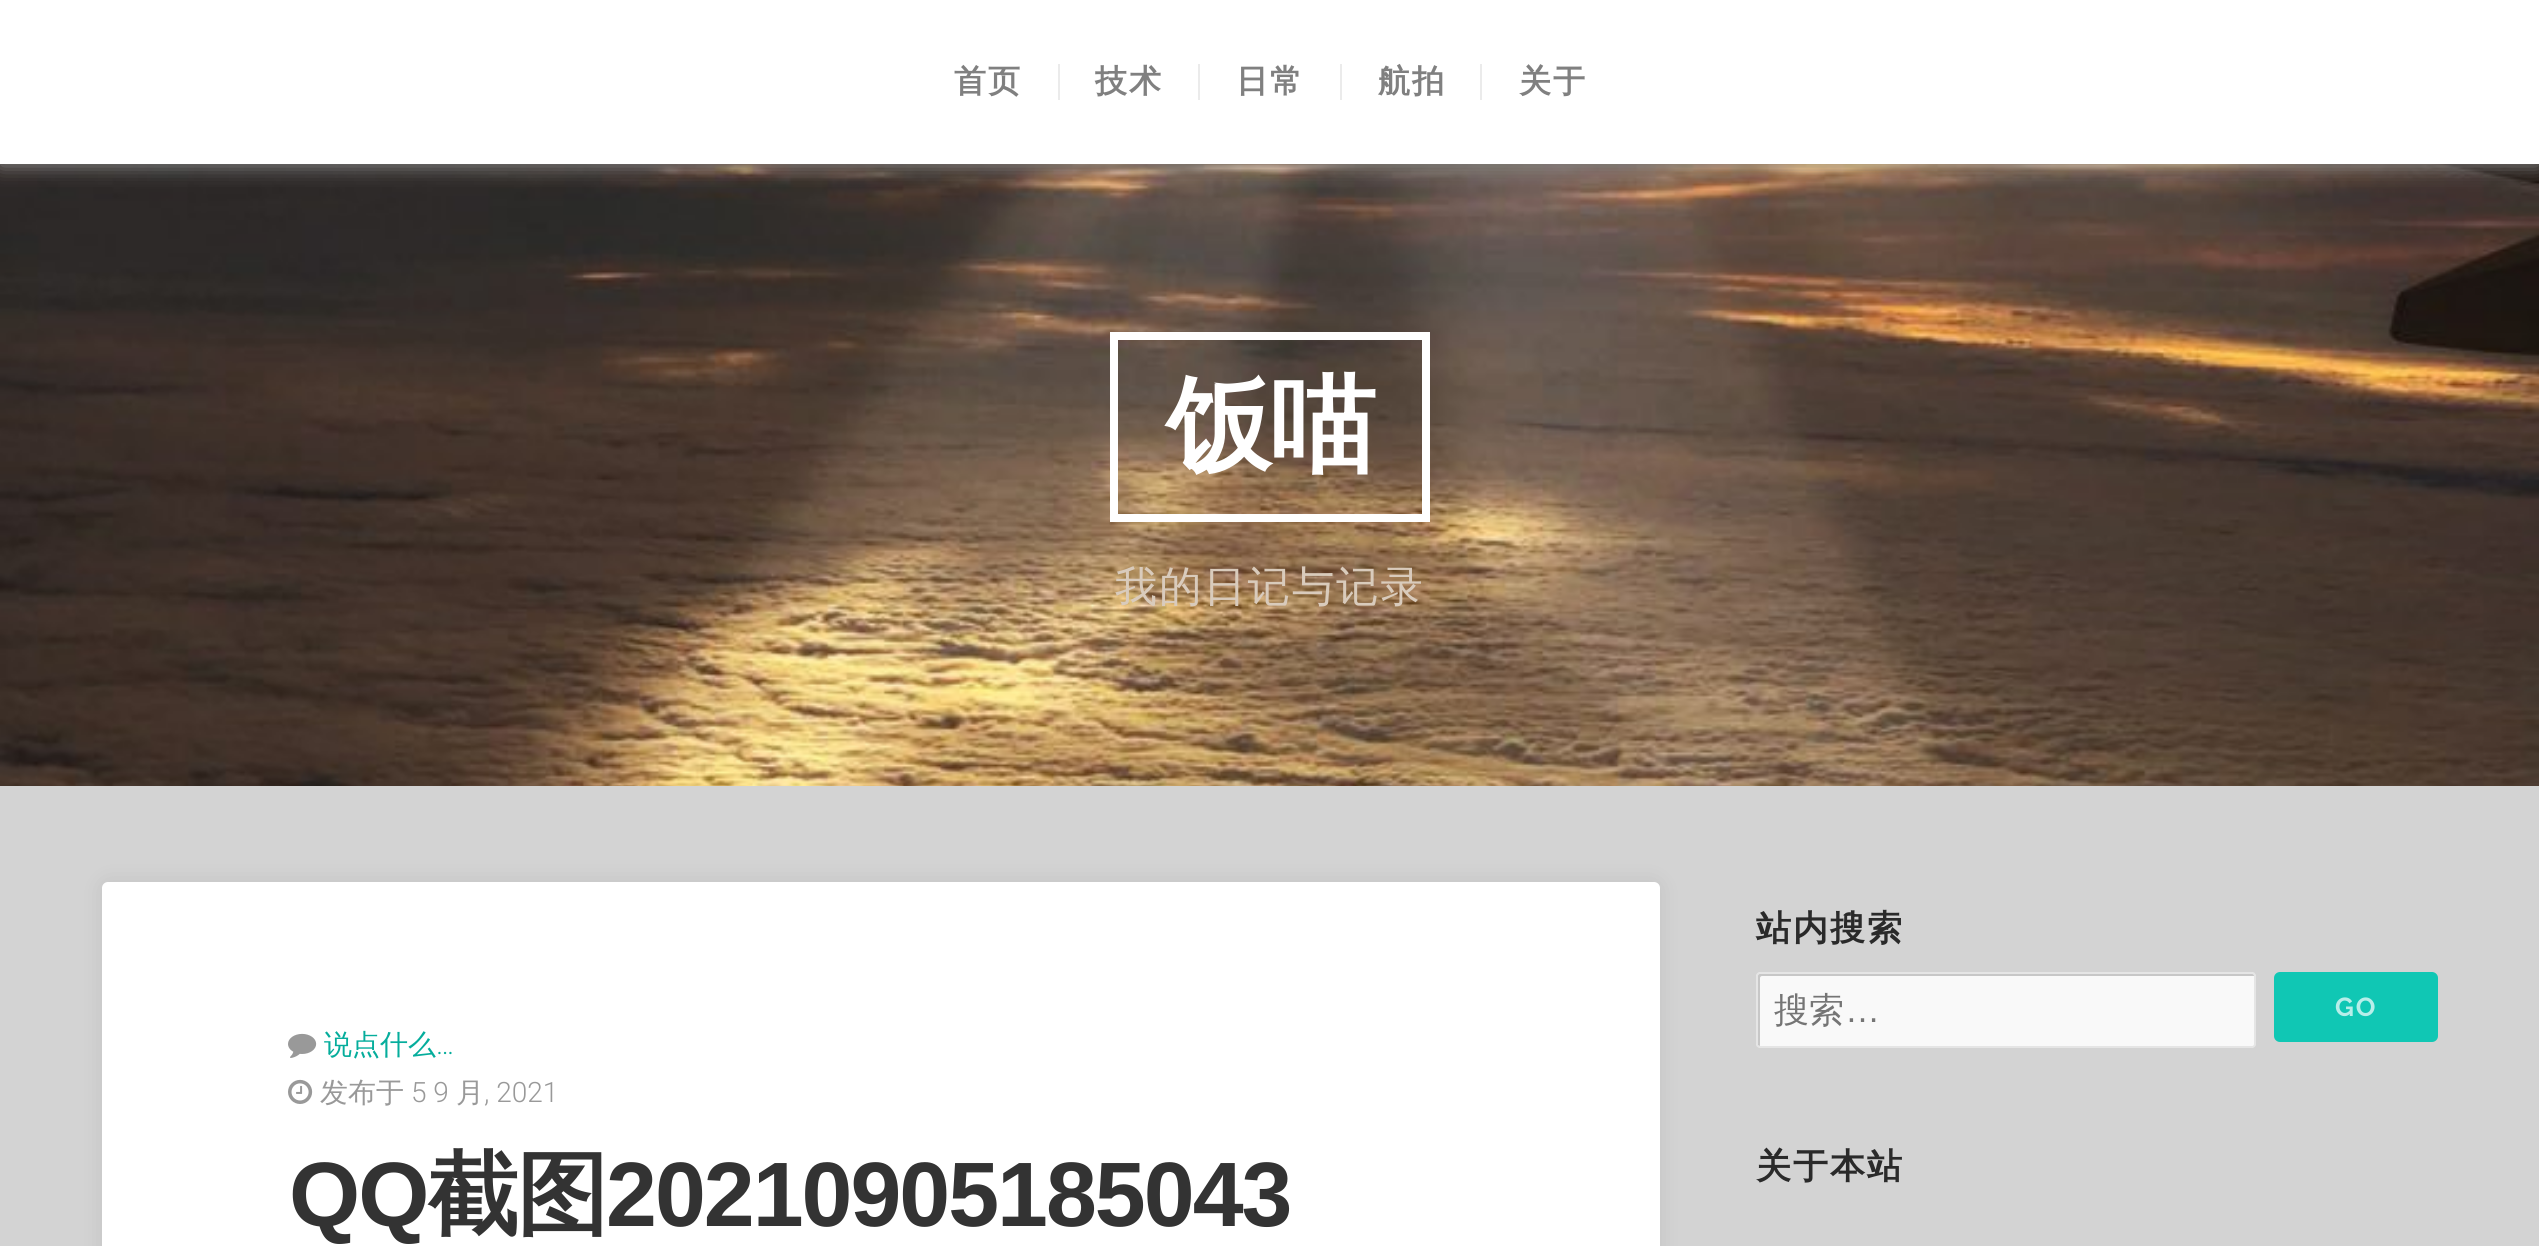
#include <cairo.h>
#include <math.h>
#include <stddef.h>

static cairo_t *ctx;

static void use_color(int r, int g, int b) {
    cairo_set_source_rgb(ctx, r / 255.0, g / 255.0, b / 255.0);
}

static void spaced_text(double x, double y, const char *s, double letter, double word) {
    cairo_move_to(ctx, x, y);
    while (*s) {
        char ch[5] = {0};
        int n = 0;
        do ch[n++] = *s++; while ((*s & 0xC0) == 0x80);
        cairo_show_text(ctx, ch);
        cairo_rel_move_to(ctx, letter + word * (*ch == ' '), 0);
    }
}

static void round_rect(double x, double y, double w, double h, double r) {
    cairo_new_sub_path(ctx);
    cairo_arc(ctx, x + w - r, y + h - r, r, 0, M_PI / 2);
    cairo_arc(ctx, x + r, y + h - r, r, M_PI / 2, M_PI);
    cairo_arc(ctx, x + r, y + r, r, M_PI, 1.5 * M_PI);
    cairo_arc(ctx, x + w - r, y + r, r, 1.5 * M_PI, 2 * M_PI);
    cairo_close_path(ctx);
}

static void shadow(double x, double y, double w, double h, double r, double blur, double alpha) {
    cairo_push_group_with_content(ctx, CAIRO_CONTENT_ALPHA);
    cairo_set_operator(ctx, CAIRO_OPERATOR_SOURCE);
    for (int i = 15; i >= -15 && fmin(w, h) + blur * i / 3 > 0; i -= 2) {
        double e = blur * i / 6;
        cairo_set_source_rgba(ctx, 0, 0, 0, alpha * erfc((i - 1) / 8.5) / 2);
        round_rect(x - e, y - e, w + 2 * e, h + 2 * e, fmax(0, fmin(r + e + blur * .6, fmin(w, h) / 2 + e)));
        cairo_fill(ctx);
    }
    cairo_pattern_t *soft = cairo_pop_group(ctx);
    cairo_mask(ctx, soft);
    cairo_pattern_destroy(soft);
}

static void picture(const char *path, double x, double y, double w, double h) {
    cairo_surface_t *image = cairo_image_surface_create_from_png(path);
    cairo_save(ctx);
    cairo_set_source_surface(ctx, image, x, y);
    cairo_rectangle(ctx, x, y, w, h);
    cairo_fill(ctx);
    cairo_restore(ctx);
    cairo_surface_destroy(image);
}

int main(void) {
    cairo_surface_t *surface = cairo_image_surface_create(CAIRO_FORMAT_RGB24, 2539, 1246);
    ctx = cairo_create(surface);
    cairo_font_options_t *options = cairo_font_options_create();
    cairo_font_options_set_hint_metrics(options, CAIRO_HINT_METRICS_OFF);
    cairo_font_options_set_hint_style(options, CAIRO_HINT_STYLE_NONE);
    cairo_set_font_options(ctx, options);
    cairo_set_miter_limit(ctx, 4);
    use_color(211, 211, 211);
    cairo_paint(ctx);
    use_color(255, 255, 255);
    cairo_rectangle(ctx, 0, 0, 2539, 164);
    cairo_fill(ctx);
    picture("img1.png", 0, 164, 2539, 622);
    cairo_save(ctx);
    cairo_rectangle(ctx, 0, 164, 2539, 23);
    cairo_clip(ctx);
    use_color(136, 136, 136);
    shadow(0, 2, 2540, 164, 0, 10, 1);
    cairo_restore(ctx);
    cairo_select_font_face(ctx, "WenQuanYi Zen Hei", CAIRO_FONT_SLANT_NORMAL, CAIRO_FONT_WEIGHT_BOLD);
    cairo_set_font_size(ctx, 32);
    use_color(128, 128, 128);
    spaced_text(954, 92, "首页", 2, 0);
    use_color(235, 235, 235);
    cairo_rectangle(ctx, 1058, 64, 2, 36);
    cairo_fill(ctx);
    use_color(128, 128, 128);
    spaced_text(1095, 92, "技术", 2, 0);
    use_color(235, 235, 235);
    cairo_rectangle(ctx, 1198, 64, 2, 36);
    cairo_fill(ctx);
    use_color(128, 128, 128);
    spaced_text(1236, 92, "日常", 2, 0);
    use_color(235, 235, 235);
    cairo_rectangle(ctx, 1340, 64, 2, 36);
    cairo_fill(ctx);
    use_color(128, 128, 128);
    spaced_text(1378, 92, "航拍", 2, 0);
    use_color(235, 235, 235);
    cairo_rectangle(ctx, 1480, 64, 2, 36);
    cairo_fill(ctx);
    use_color(128, 128, 128);
    spaced_text(1519, 92, "关于", 2, 0);
    cairo_rectangle(ctx, 1114, 336, 312, 182);
    use_color(255, 255, 255);
    cairo_set_line_width(ctx, 8);
    cairo_stroke(ctx);
    cairo_set_font_size(ctx, 106);
    spaced_text(1166, 462, "饭喵", -2, 0);
    cairo_select_font_face(ctx, "WenQuanYi Zen Hei Medium", CAIRO_FONT_SLANT_NORMAL, CAIRO_FONT_WEIGHT_NORMAL);
    cairo_set_font_size(ctx, 42.25);
    use_color(217, 203, 188);
    spaced_text(1115, 601, "我的日记与记录", 2, 0);
    use_color(0, 0, 0);
    shadow(102, 882, 1558, 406, 6, 12, 0.08);
    use_color(255, 255, 255);
    round_rect(102, 882, 1558, 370, 6);
    cairo_fill(ctx);
    picture("img2.png", 288, 1033, 29, 25);
    cairo_set_font_size(ctx, 28);
    use_color(5, 173, 156);
    cairo_move_to(ctx, 324, 1054);
    cairo_show_text(ctx, "说点什么");
    cairo_select_font_face(ctx, "Roboto Light", CAIRO_FONT_SLANT_NORMAL, CAIRO_FONT_WEIGHT_NORMAL);
    cairo_move_to(ctx, 436, 1054);
    cairo_show_text(ctx, "…");
    picture("img3.png", 288, 1079, 25, 25);
    cairo_select_font_face(ctx, "WenQuanYi Zen Hei Medium", CAIRO_FONT_SLANT_NORMAL, CAIRO_FONT_WEIGHT_NORMAL);
    use_color(153, 153, 153);
    cairo_move_to(ctx, 320, 1102);
    cairo_show_text(ctx, "发布于");
    cairo_select_font_face(ctx, "Roboto Light", CAIRO_FONT_SLANT_NORMAL, CAIRO_FONT_WEIGHT_NORMAL);
    cairo_move_to(ctx, 411, 1102);
    cairo_show_text(ctx, "5 9");
    cairo_select_font_face(ctx, "WenQuanYi Zen Hei Medium", CAIRO_FONT_SLANT_NORMAL, CAIRO_FONT_WEIGHT_NORMAL);
    cairo_move_to(ctx, 456, 1102);
    cairo_show_text(ctx, "月");
    cairo_select_font_face(ctx, "Roboto Light", CAIRO_FONT_SLANT_NORMAL, CAIRO_FONT_WEIGHT_NORMAL);
    cairo_move_to(ctx, 484, 1102);
    cairo_show_text(ctx, ", 2021");
    cairo_select_font_face(ctx, "Liberation Sans", CAIRO_FONT_SLANT_NORMAL, CAIRO_FONT_WEIGHT_BOLD);
    cairo_set_font_size(ctx, 91.5);
    use_color(51, 51, 51);
    spaced_text(289, 1226, "QQ", -2, 0);
    cairo_select_font_face(ctx, "WenQuanYi Zen Hei", CAIRO_FONT_SLANT_NORMAL, CAIRO_FONT_WEIGHT_BOLD);
    spaced_text(427, 1226, "截图", -2, 0);
    cairo_select_font_face(ctx, "Liberation Sans", CAIRO_FONT_SLANT_NORMAL, CAIRO_FONT_WEIGHT_BOLD);
    spaced_text(606, 1226, "20210905185043", -2, 0);
    cairo_select_font_face(ctx, "WenQuanYi Zen Hei", CAIRO_FONT_SLANT_NORMAL, CAIRO_FONT_WEIGHT_BOLD);
    cairo_set_font_size(ctx, 35);
    use_color(42, 42, 42);
    spaced_text(1756, 940, "站内搜索", 2, 0);
    use_color(249, 249, 249);
    round_rect(1756, 972, 500, 76, 4);
    cairo_fill(ctx);
    use_color(199, 199, 199);
    cairo_new_path(ctx);
    cairo_move_to(ctx, 1762, 976);
    cairo_line_to(ctx, 2254, 976);
    cairo_curve_to(ctx, 2254, 975, 2253, 974, 2252, 974);
    cairo_line_to(ctx, 1760, 974);
    cairo_curve_to(ctx, 1759, 974, 1758, 975, 1758, 976);
    cairo_line_to(ctx, 1758, 1045);
    cairo_line_to(ctx, 1760, 1046);
    cairo_line_to(ctx, 1760, 978);
    cairo_curve_to(ctx, 1760, 977, 1761, 976, 1762, 976);
    cairo_close_path(ctx);
    cairo_fill(ctx);
    round_rect(1757, 973, 498, 74, 3);
    cairo_set_source_rgba(ctx, 0, 0, 0, 0.08);
    cairo_set_line_width(ctx, 2);
    cairo_stroke(ctx);
    cairo_select_font_face(ctx, "WenQuanYi Zen Hei Medium", CAIRO_FONT_SLANT_NORMAL, CAIRO_FONT_WEIGHT_NORMAL);
    use_color(117, 117, 117);
    cairo_move_to(ctx, 1774, 1022);
    cairo_show_text(ctx, "搜索");
    cairo_select_font_face(ctx, "Liberation Sans", CAIRO_FONT_SLANT_NORMAL, CAIRO_FONT_WEIGHT_NORMAL);
    cairo_move_to(ctx, 1845, 1022);
    cairo_show_text(ctx, "…");
    use_color(16, 199, 180);
    round_rect(2274, 972, 164, 70, 6);
    cairo_fill(ctx);
    cairo_select_font_face(ctx, "Raleway", CAIRO_FONT_SLANT_NORMAL, CAIRO_FONT_WEIGHT_BOLD);
    cairo_set_font_size(ctx, 26);
    use_color(183, 238, 233);
    spaced_text(2335, 1016, "GO", 2, 0);
    cairo_select_font_face(ctx, "WenQuanYi Zen Hei", CAIRO_FONT_SLANT_NORMAL, CAIRO_FONT_WEIGHT_BOLD);
    cairo_set_font_size(ctx, 35);
    use_color(42, 42, 42);
    spaced_text(1756, 1178, "关于本站", 2, 0);
    cairo_surface_write_to_png(surface, "result.png");
    cairo_font_options_destroy(options);
    cairo_destroy(ctx);
    cairo_surface_destroy(surface);
    return 0;
}
